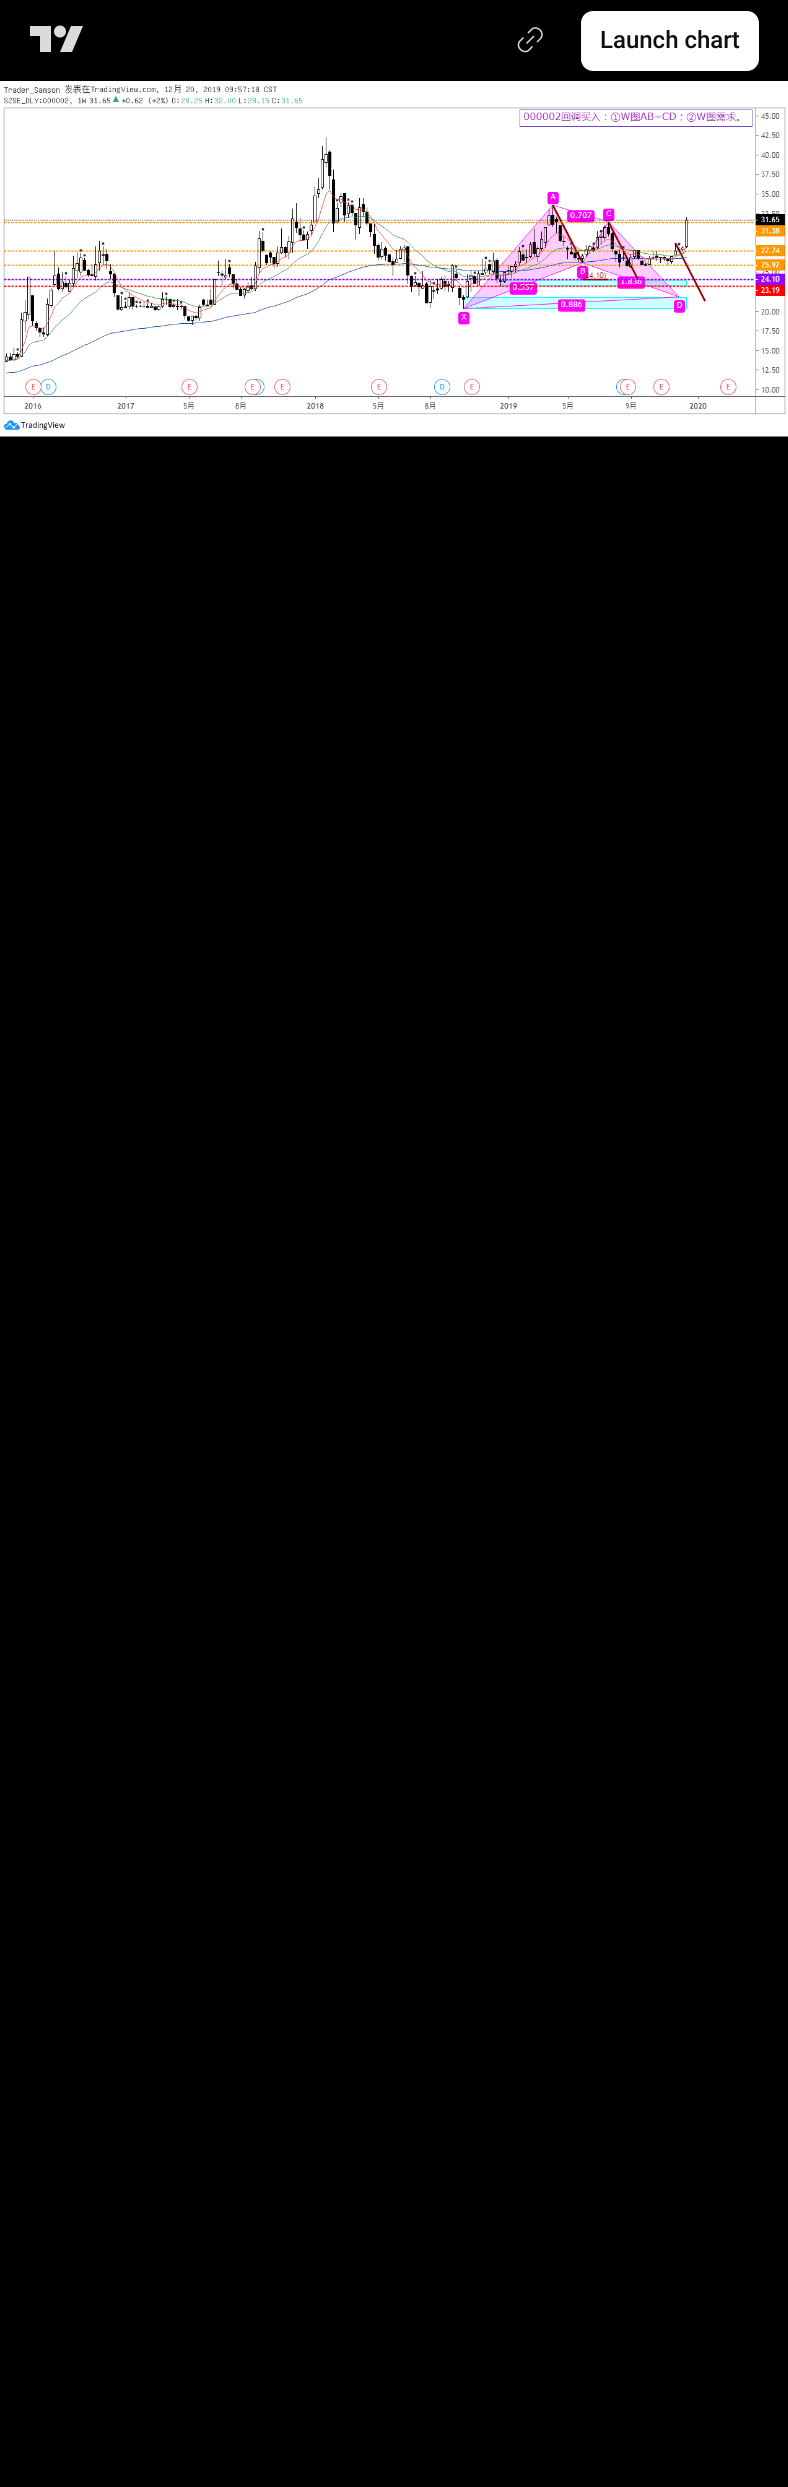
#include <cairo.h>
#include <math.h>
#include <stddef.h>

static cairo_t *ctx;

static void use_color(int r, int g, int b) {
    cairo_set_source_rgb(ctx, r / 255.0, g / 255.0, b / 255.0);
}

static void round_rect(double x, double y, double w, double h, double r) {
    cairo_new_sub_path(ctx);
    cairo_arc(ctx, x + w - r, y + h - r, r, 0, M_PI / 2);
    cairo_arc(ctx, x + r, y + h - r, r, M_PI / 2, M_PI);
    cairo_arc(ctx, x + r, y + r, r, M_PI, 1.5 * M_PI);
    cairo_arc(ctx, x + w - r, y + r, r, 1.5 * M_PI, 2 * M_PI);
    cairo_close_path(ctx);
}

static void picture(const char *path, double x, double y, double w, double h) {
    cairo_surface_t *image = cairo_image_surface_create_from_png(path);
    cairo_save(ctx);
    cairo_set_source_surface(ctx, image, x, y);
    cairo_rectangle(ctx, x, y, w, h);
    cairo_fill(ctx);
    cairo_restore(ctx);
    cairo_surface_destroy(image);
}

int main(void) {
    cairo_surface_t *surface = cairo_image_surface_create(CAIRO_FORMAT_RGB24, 788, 2487);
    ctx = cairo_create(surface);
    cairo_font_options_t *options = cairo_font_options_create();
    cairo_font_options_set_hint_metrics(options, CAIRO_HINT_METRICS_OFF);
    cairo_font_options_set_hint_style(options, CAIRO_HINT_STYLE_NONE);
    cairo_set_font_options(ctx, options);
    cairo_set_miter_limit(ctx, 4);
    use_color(0, 0, 0);
    cairo_paint(ctx);
    use_color(219, 219, 219);
    cairo_new_path(ctx);
    cairo_move_to(ctx, 51, 52);
    cairo_line_to(ctx, 40, 52);
    cairo_line_to(ctx, 40, 36);
    cairo_line_to(ctx, 30, 36);
    cairo_line_to(ctx, 30, 26);
    cairo_line_to(ctx, 51, 26);
    cairo_close_path(ctx);
    cairo_move_to(ctx, 72, 52);
    cairo_line_to(ctx, 60, 52);
    cairo_line_to(ctx, 71, 26);
    cairo_line_to(ctx, 83, 26);
    cairo_close_path(ctx);
    cairo_fill(ctx);
    cairo_arc(ctx, 60, 31.5, 6, 0, 2 * M_PI);
    cairo_fill(ctx);
    picture("img1.png", 517, 27, 26, 26);
    use_color(255, 255, 255);
    round_rect(582, 12, 176, 58, 11);
    cairo_fill_preserve(ctx);
    cairo_stroke(ctx);
    cairo_select_font_face(ctx, "Roboto Medium", CAIRO_FONT_SLANT_NORMAL, CAIRO_FONT_WEIGHT_NORMAL);
    cairo_set_font_size(ctx, 24);
    use_color(15, 15, 15);
    cairo_move_to(ctx, 600, 48);
    cairo_show_text(ctx, "Launch chart");
    picture("img2.png", 0, 81, 788, 356);
    cairo_surface_write_to_png(surface, "result.png");
    cairo_font_options_destroy(options);
    cairo_destroy(ctx);
    cairo_surface_destroy(surface);
    return 0;
}
